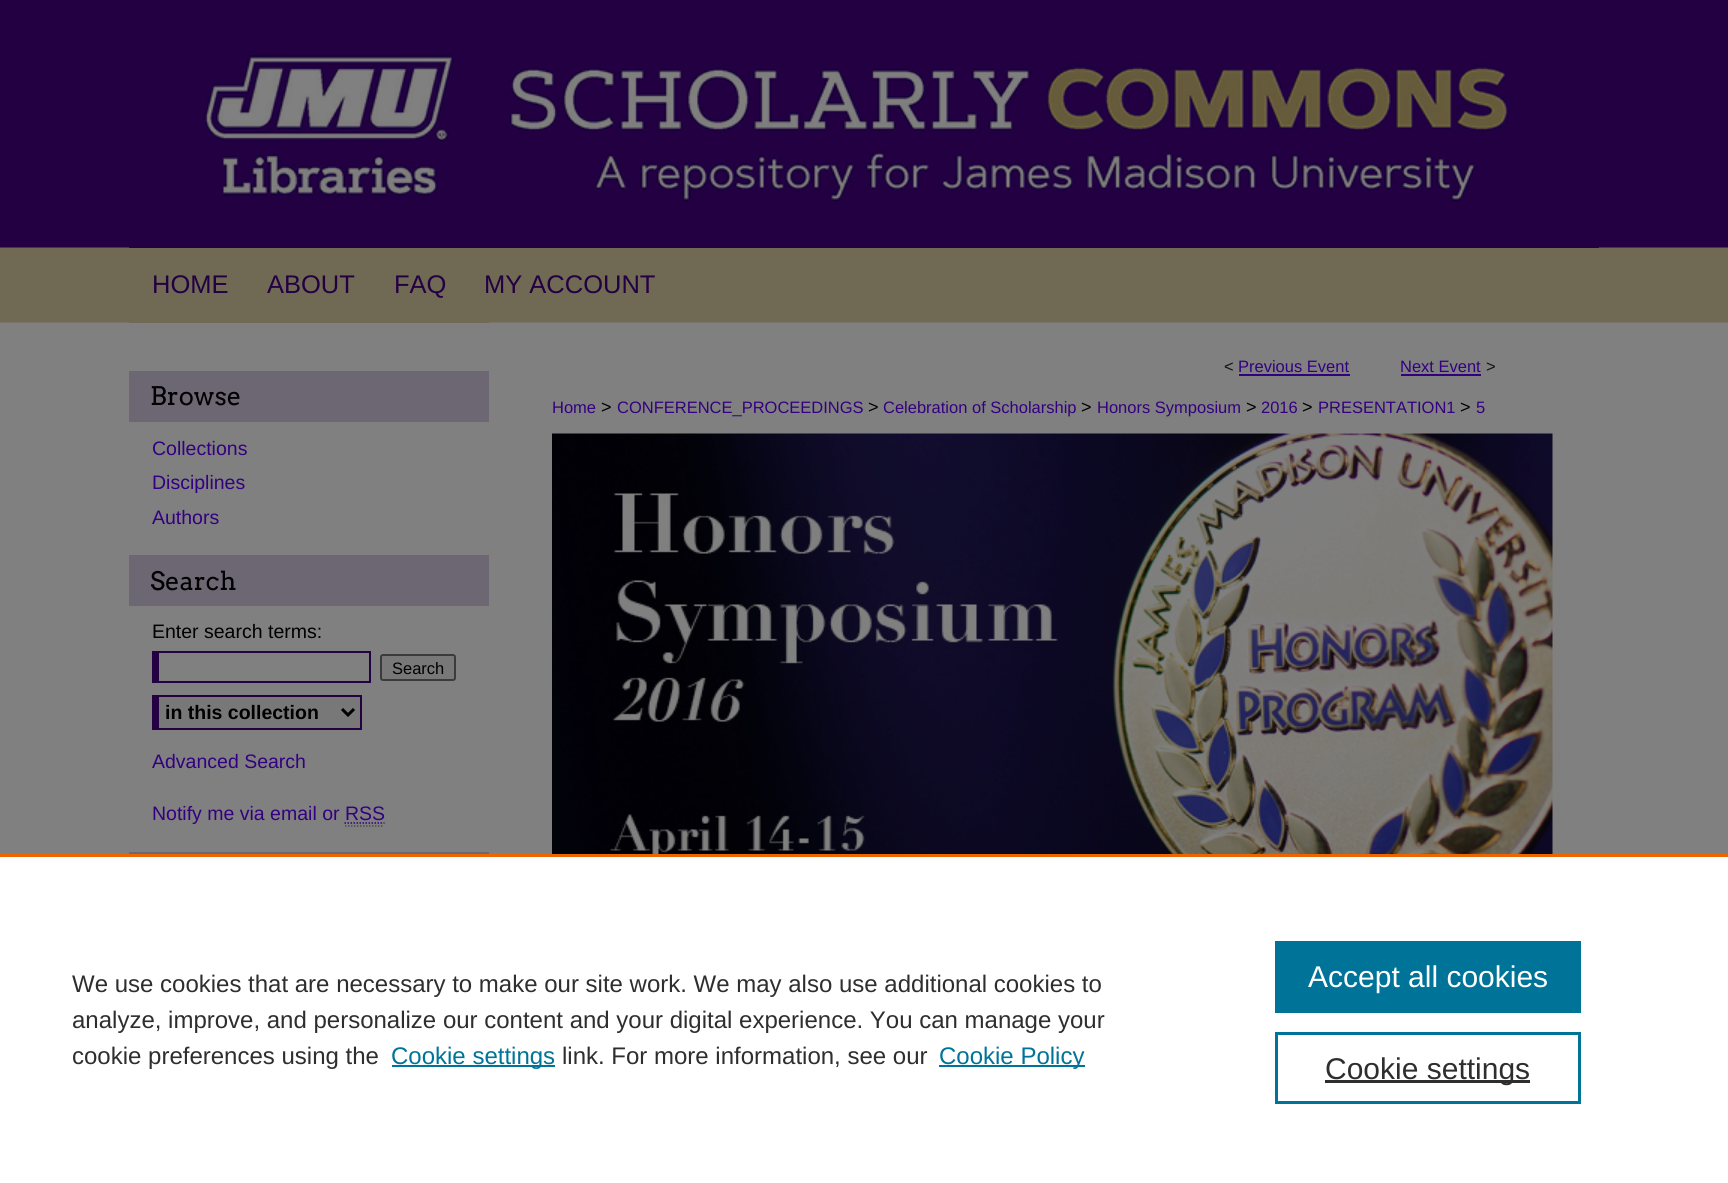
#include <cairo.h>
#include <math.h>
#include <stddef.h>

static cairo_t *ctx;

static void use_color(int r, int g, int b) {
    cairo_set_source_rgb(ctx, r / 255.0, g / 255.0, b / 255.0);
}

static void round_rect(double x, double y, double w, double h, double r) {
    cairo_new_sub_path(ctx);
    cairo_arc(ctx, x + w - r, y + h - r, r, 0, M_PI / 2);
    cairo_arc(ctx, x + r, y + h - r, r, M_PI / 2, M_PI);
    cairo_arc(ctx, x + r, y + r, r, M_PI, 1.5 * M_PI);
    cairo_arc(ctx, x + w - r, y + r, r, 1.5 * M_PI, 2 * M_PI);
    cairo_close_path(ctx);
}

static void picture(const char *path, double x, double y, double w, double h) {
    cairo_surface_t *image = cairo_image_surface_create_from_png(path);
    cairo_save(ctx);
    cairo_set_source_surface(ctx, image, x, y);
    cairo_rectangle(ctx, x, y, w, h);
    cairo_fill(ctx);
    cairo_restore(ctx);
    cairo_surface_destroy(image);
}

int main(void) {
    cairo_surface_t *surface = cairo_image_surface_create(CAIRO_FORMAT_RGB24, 1728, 1183);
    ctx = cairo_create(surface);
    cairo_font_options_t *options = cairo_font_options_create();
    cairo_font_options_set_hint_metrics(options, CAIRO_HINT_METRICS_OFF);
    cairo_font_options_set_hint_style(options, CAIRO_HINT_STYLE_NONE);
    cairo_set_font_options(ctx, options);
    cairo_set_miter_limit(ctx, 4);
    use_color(128, 128, 128);
    cairo_paint(ctx);
    picture("img1.png", 0, 0, 1728, 323);
    use_color(35, 0, 66);
    cairo_rectangle(ctx, 129, 247, 1470, 1);
    cairo_fill(ctx);
    picture("img2.png", 204, 51, 1306, 151);
    use_color(112, 105, 85);
    cairo_rectangle(ctx, 129, 322, 1470, 1);
    cairo_fill(ctx);
    cairo_select_font_face(ctx, "Liberation Sans", CAIRO_FONT_SLANT_NORMAL, CAIRO_FONT_WEIGHT_NORMAL);
    cairo_set_font_size(ctx, 25.5);
    use_color(35, 0, 66);
    cairo_move_to(ctx, 152, 293);
    cairo_show_text(ctx, "HOME");
    cairo_move_to(ctx, 267, 293);
    cairo_show_text(ctx, "ABOUT");
    cairo_move_to(ctx, 394, 293);
    cairo_show_text(ctx, "FAQ");
    cairo_move_to(ctx, 484, 293);
    cairo_show_text(ctx, "MY ACCOUNT");
    use_color(120, 117, 106);
    cairo_rectangle(ctx, 489, 322, 1110, 1);
    cairo_fill(ctx);
    use_color(109, 102, 115);
    cairo_rectangle(ctx, 129, 371, 360, 51);
    cairo_fill(ctx);
    cairo_select_font_face(ctx, "Arvo", CAIRO_FONT_SLANT_NORMAL, CAIRO_FONT_WEIGHT_NORMAL);
    use_color(0, 0, 0);
    cairo_move_to(ctx, 150, 405);
    cairo_show_text(ctx, "Browse");
    cairo_select_font_face(ctx, "Liberation Sans", CAIRO_FONT_SLANT_NORMAL, CAIRO_FONT_WEIGHT_NORMAL);
    cairo_set_font_size(ctx, 19.5);
    use_color(51, 0, 128);
    cairo_move_to(ctx, 152, 455);
    cairo_show_text(ctx, "Collections");
    cairo_move_to(ctx, 152, 489);
    cairo_show_text(ctx, "Disciplines");
    cairo_move_to(ctx, 152, 524);
    cairo_show_text(ctx, "Authors");
    use_color(109, 102, 115);
    cairo_rectangle(ctx, 129, 555, 360, 51);
    cairo_fill(ctx);
    cairo_select_font_face(ctx, "Arvo", CAIRO_FONT_SLANT_NORMAL, CAIRO_FONT_WEIGHT_NORMAL);
    cairo_set_font_size(ctx, 25.5);
    use_color(0, 0, 0);
    cairo_move_to(ctx, 150, 590);
    cairo_show_text(ctx, "Search");
    cairo_select_font_face(ctx, "Liberation Sans", CAIRO_FONT_SLANT_NORMAL, CAIRO_FONT_WEIGHT_NORMAL);
    cairo_set_font_size(ctx, 19.5);
    cairo_move_to(ctx, 152, 638);
    cairo_show_text(ctx, "Enter search terms:");
    use_color(35, 1, 66);
    cairo_rectangle(ctx, 152, 651, 219, 2);
    cairo_fill(ctx);
    cairo_rectangle(ctx, 369, 651, 2, 32);
    cairo_fill(ctx);
    cairo_rectangle(ctx, 152, 681, 219, 2);
    cairo_fill(ctx);
    cairo_rectangle(ctx, 152, 651, 7, 32);
    cairo_fill(ctx);
    use_color(120, 120, 120);
    round_rect(381, 655, 74, 25, 2);
    cairo_fill_preserve(ctx);
    use_color(59, 59, 59);
    cairo_stroke(ctx);
    cairo_set_font_size(ctx, 16.5);
    use_color(0, 0, 0);
    cairo_move_to(ctx, 392, 674);
    cairo_show_text(ctx, "Search");
    use_color(120, 120, 120);
    cairo_rectangle(ctx, 159, 697, 201, 31);
    cairo_fill(ctx);
    use_color(35, 1, 66);
    cairo_rectangle(ctx, 152, 695, 210, 2);
    cairo_fill(ctx);
    cairo_rectangle(ctx, 360, 695, 2, 34);
    cairo_fill(ctx);
    cairo_rectangle(ctx, 152, 728, 210, 2);
    cairo_fill(ctx);
    cairo_rectangle(ctx, 152, 695, 7, 34);
    cairo_fill(ctx);
    cairo_new_path(ctx);
    cairo_move_to(ctx, 342, 709);
    cairo_line_to(ctx, 348, 715);
    cairo_line_to(ctx, 354, 709);
    use_color(0, 0, 0);
    cairo_set_line_width(ctx, 3);
    cairo_stroke(ctx);
    cairo_select_font_face(ctx, "Liberation Sans", CAIRO_FONT_SLANT_NORMAL, CAIRO_FONT_WEIGHT_BOLD);
    cairo_set_font_size(ctx, 19.5);
    cairo_move_to(ctx, 165, 719);
    cairo_show_text(ctx, "in this collection");
    cairo_select_font_face(ctx, "Liberation Sans", CAIRO_FONT_SLANT_NORMAL, CAIRO_FONT_WEIGHT_NORMAL);
    use_color(51, 0, 128);
    cairo_move_to(ctx, 152, 768);
    cairo_show_text(ctx, "Advanced Search");
    cairo_move_to(ctx, 152, 820);
    cairo_show_text(ctx, "Notify me via email or RSS");
    cairo_new_path(ctx);
    cairo_move_to(ctx, 344.5, 823);
    cairo_line_to(ctx, 384.5, 823);
    cairo_set_line_width(ctx, 1.5);
    cairo_set_dash(ctx, (double[]){1.5, 1.5}, 2, 0);
    cairo_stroke(ctx);
    cairo_new_path(ctx);
    cairo_move_to(ctx, 345, 826);
    cairo_line_to(ctx, 384, 826);
    use_color(77, 77, 77);
    cairo_stroke(ctx);
    use_color(109, 102, 115);
    cairo_rectangle(ctx, 129, 852, 360, 2);
    cairo_fill(ctx);
    cairo_set_font_size(ctx, 16.5);
    use_color(17, 17, 17);
    cairo_move_to(ctx, 1224, 372);
    cairo_show_text(ctx, "<");
    use_color(51, 0, 128);
    cairo_move_to(ctx, 1238, 372);
    cairo_show_text(ctx, "Previous Event");
    cairo_rectangle(ctx, 1239, 374, 111, 2);
    cairo_fill(ctx);
    cairo_move_to(ctx, 1400, 372);
    cairo_show_text(ctx, "Next Event");
    cairo_rectangle(ctx, 1401, 374, 80, 2);
    cairo_fill(ctx);
    use_color(17, 17, 17);
    cairo_move_to(ctx, 1486, 372);
    cairo_show_text(ctx, ">");
    use_color(51, 0, 128);
    cairo_move_to(ctx, 552, 413);
    cairo_show_text(ctx, "Home");
    cairo_set_font_size(ctx, 18);
    use_color(0, 0, 0);
    cairo_move_to(ctx, 601, 413);
    cairo_show_text(ctx, ">");
    cairo_set_font_size(ctx, 16.5);
    use_color(51, 0, 128);
    cairo_move_to(ctx, 617, 413);
    cairo_show_text(ctx, "CONFERENCE_PROCEEDINGS");
    cairo_set_font_size(ctx, 18);
    use_color(0, 0, 0);
    cairo_move_to(ctx, 868, 413);
    cairo_show_text(ctx, ">");
    cairo_set_font_size(ctx, 16.5);
    use_color(51, 0, 128);
    cairo_move_to(ctx, 883, 413);
    cairo_show_text(ctx, "Celebration of Scholarship");
    cairo_set_font_size(ctx, 18);
    use_color(0, 0, 0);
    cairo_move_to(ctx, 1081, 413);
    cairo_show_text(ctx, ">");
    cairo_set_font_size(ctx, 16.5);
    use_color(51, 0, 128);
    cairo_move_to(ctx, 1097, 413);
    cairo_show_text(ctx, "Honors Symposium");
    cairo_set_font_size(ctx, 18);
    use_color(0, 0, 0);
    cairo_move_to(ctx, 1246, 413);
    cairo_show_text(ctx, ">");
    cairo_set_font_size(ctx, 16.5);
    use_color(51, 0, 128);
    cairo_move_to(ctx, 1261, 413);
    cairo_show_text(ctx, "2016");
    cairo_set_font_size(ctx, 18);
    use_color(0, 0, 0);
    cairo_move_to(ctx, 1302, 413);
    cairo_show_text(ctx, ">");
    cairo_set_font_size(ctx, 16.5);
    use_color(51, 0, 128);
    cairo_move_to(ctx, 1318, 413);
    cairo_show_text(ctx, "PRESENTATION1");
    cairo_set_font_size(ctx, 18);
    use_color(0, 0, 0);
    cairo_move_to(ctx, 1460, 413);
    cairo_show_text(ctx, ">");
    cairo_set_font_size(ctx, 16.5);
    use_color(51, 0, 128);
    cairo_move_to(ctx, 1476, 413);
    cairo_show_text(ctx, "5");
    picture("img3.png", 552, 433, 1001, 421);
    use_color(255, 255, 255);
    cairo_rectangle(ctx, 0, 857, 1728, 326);
    cairo_fill(ctx);
    use_color(235, 101, 0);
    cairo_rectangle(ctx, 0, 854, 1728, 3);
    cairo_fill(ctx);
    cairo_set_font_size(ctx, 24);
    use_color(46, 46, 46);
    cairo_move_to(ctx, 72, 992);
    cairo_show_text(ctx, "We use cookies that are necessary to make our site work. We may also use additional cookies to");
    cairo_move_to(ctx, 72, 1028);
    cairo_show_text(ctx, "analyze, improve, and personalize our content and your digital experience. You can manage your");
    cairo_move_to(ctx, 72, 1064);
    cairo_show_text(ctx, "cookie preferences using the");
    use_color(0, 115, 152);
    cairo_rectangle(ctx, 392, 1065, 163, 2);
    cairo_fill(ctx);
    cairo_move_to(ctx, 391, 1064);
    cairo_show_text(ctx, "Cookie settings");
    use_color(46, 46, 46);
    cairo_move_to(ctx, 562, 1064);
    cairo_show_text(ctx, "link. For more information, see our");
    use_color(0, 115, 152);
    cairo_rectangle(ctx, 939, 1065, 146, 2);
    cairo_fill(ctx);
    cairo_move_to(ctx, 939, 1064);
    cairo_show_text(ctx, "Cookie Policy");
    cairo_rectangle(ctx, 1275, 941, 306, 72);
    cairo_fill(ctx);
    cairo_set_font_size(ctx, 30);
    use_color(255, 255, 255);
    cairo_move_to(ctx, 1308, 987);
    cairo_show_text(ctx, "Accept all cookies");
    cairo_rectangle(ctx, 1276.5, 1033.5, 303, 69);
    use_color(0, 115, 152);
    cairo_set_line_width(ctx, 3);
    cairo_set_dash(ctx, NULL, 0, 0);
    cairo_stroke(ctx);
    use_color(46, 46, 46);
    cairo_rectangle(ctx, 1325, 1080, 205, 3);
    cairo_fill(ctx);
    cairo_move_to(ctx, 1325, 1079);
    cairo_show_text(ctx, "Cookie settings");
    cairo_surface_write_to_png(surface, "result.png");
    cairo_font_options_destroy(options);
    cairo_destroy(ctx);
    cairo_surface_destroy(surface);
    return 0;
}
